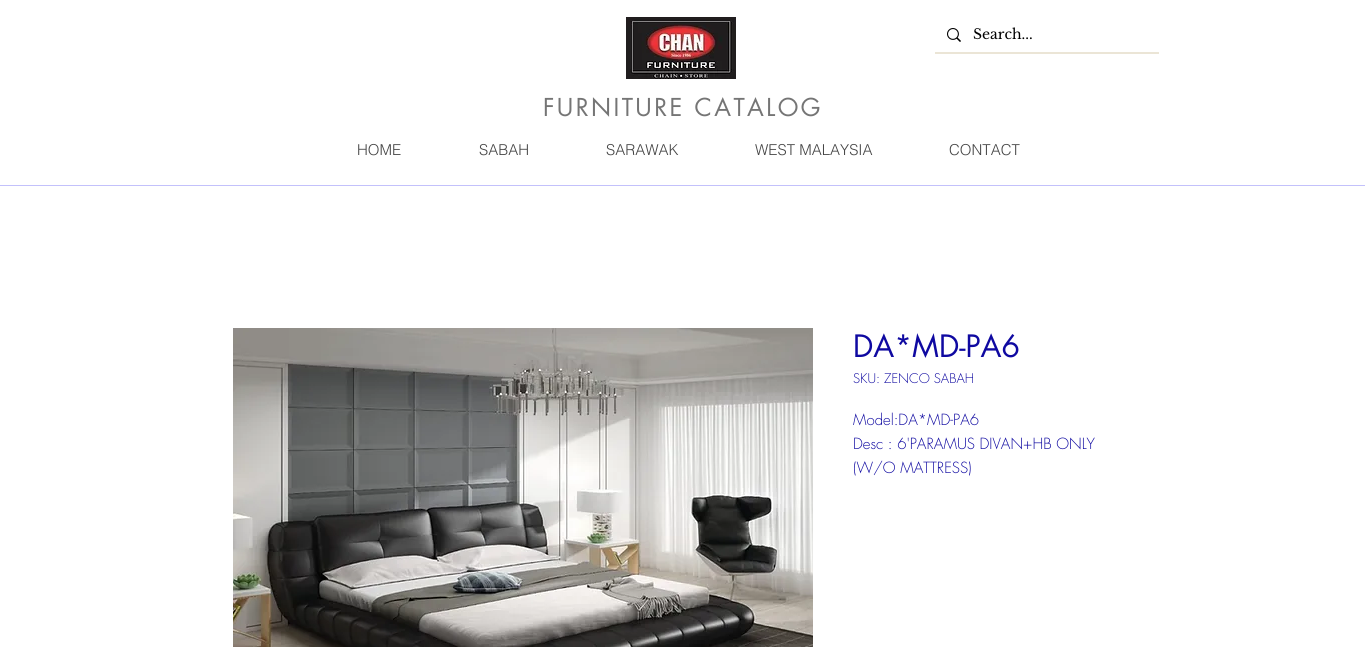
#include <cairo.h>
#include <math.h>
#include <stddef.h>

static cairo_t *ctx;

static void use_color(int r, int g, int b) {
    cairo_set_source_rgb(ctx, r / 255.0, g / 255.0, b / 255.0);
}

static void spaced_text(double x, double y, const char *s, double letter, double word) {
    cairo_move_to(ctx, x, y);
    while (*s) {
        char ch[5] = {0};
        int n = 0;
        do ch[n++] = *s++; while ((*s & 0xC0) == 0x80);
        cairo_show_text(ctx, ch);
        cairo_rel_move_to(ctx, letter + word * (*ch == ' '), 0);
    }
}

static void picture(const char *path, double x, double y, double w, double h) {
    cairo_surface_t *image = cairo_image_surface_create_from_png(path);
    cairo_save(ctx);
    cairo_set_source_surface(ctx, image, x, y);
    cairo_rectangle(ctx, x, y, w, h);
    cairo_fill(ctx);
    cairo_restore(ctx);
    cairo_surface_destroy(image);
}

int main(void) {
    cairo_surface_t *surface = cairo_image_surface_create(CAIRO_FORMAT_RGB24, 1365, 647);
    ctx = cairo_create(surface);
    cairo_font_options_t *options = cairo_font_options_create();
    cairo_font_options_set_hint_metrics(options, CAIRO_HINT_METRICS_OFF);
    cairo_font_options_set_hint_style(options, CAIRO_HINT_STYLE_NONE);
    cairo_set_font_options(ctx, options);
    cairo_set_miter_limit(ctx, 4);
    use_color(255, 255, 255);
    cairo_paint(ctx);
    picture("img1.png", 626, 17, 110, 62);
    use_color(235, 229, 214);
    cairo_rectangle(ctx, 935, 52, 224, 2);
    cairo_fill(ctx);
    picture("img2.png", 947, 28, 14, 14);
    cairo_select_font_face(ctx, "Libre Baskerville", CAIRO_FONT_SLANT_NORMAL, CAIRO_FONT_WEIGHT_NORMAL);
    cairo_set_font_size(ctx, 14);
    use_color(0, 0, 0);
    cairo_move_to(ctx, 973, 39);
    cairo_show_text(ctx, "Search...");
    cairo_select_font_face(ctx, "futura", CAIRO_FONT_SLANT_NORMAL, CAIRO_FONT_WEIGHT_NORMAL);
    cairo_set_font_size(ctx, 24);
    use_color(117, 117, 117);
    spaced_text(543, 116, "FURNITURE CATALOG", 2.4, 0);
    cairo_select_font_face(ctx, "helvetica Light", CAIRO_FONT_SLANT_NORMAL, CAIRO_FONT_WEIGHT_NORMAL);
    cairo_set_font_size(ctx, 15);
    use_color(68, 68, 68);
    cairo_move_to(ctx, 357, 155);
    cairo_show_text(ctx, "HOME");
    cairo_move_to(ctx, 479, 155);
    cairo_show_text(ctx, "SABAH");
    cairo_move_to(ctx, 606, 155);
    cairo_show_text(ctx, "SARAWAK");
    cairo_move_to(ctx, 755, 155);
    cairo_show_text(ctx, "WEST MALAYSIA");
    cairo_move_to(ctx, 949, 155);
    cairo_show_text(ctx, "CONTACT");
    use_color(195, 193, 251);
    cairo_rectangle(ctx, 0, 185, 1365, 1);
    cairo_fill(ctx);
    picture("img3.png", 233, 328, 580, 319);
    cairo_select_font_face(ctx, "futura", CAIRO_FONT_SLANT_NORMAL, CAIRO_FONT_WEIGHT_NORMAL);
    cairo_set_font_size(ctx, 30);
    use_color(15, 9, 161);
    cairo_move_to(ctx, 853, 357);
    cairo_show_text(ctx, "DA*MD-PA6");
    cairo_select_font_face(ctx, "futura Light", CAIRO_FONT_SLANT_NORMAL, CAIRO_FONT_WEIGHT_NORMAL);
    cairo_set_font_size(ctx, 13);
    cairo_move_to(ctx, 853, 383);
    cairo_show_text(ctx, "SKU: ZENCO SABAH");
    cairo_set_font_size(ctx, 15);
    cairo_move_to(ctx, 853, 425);
    cairo_show_text(ctx, "Model:DA*MD-PA6");
    cairo_move_to(ctx, 853, 449);
    cairo_show_text(ctx, "Desc : 6'PARAMUS DIVAN+HB ONLY");
    cairo_move_to(ctx, 853, 473);
    cairo_show_text(ctx, "(W/O MATTRESS)");
    cairo_surface_write_to_png(surface, "result.png");
    cairo_font_options_destroy(options);
    cairo_destroy(ctx);
    cairo_surface_destroy(surface);
    return 0;
}
